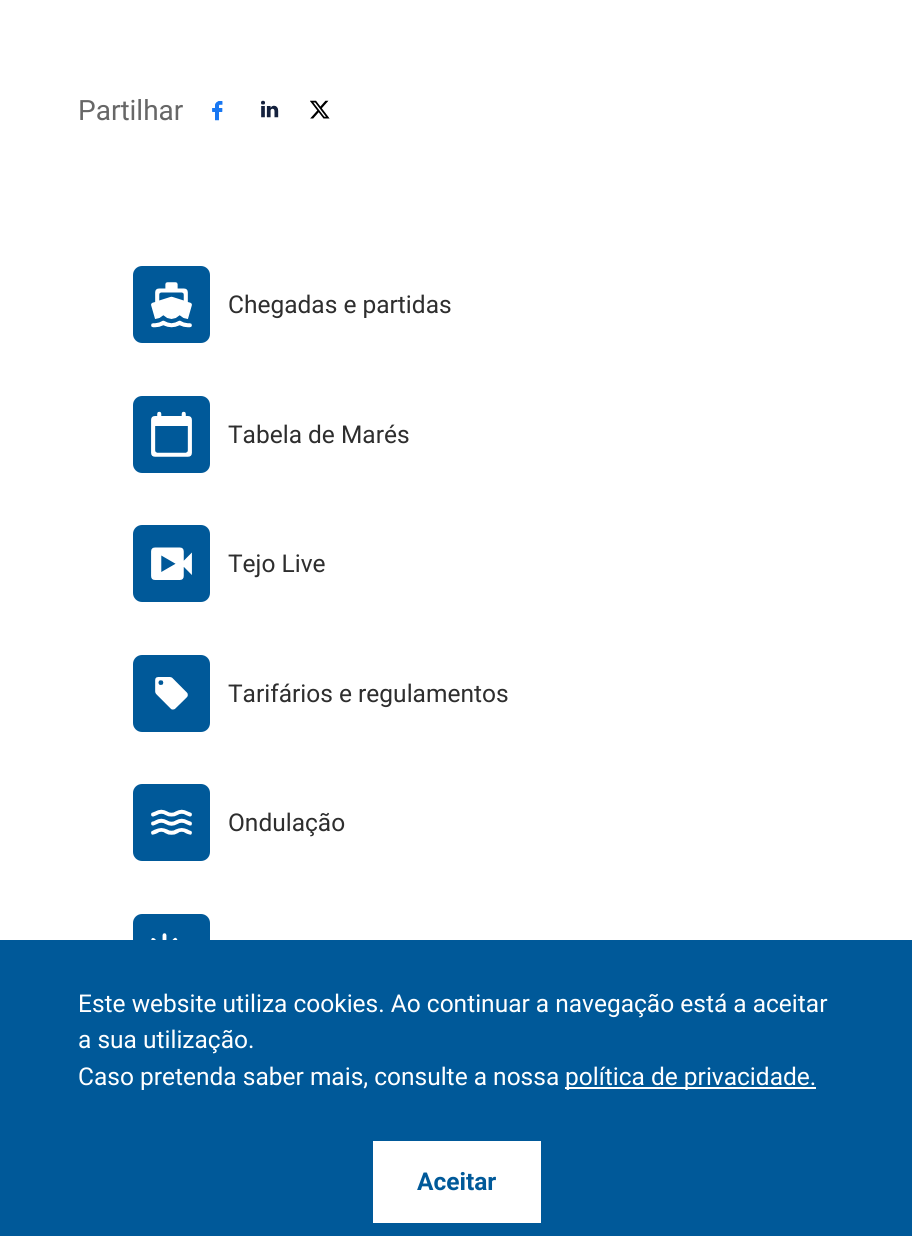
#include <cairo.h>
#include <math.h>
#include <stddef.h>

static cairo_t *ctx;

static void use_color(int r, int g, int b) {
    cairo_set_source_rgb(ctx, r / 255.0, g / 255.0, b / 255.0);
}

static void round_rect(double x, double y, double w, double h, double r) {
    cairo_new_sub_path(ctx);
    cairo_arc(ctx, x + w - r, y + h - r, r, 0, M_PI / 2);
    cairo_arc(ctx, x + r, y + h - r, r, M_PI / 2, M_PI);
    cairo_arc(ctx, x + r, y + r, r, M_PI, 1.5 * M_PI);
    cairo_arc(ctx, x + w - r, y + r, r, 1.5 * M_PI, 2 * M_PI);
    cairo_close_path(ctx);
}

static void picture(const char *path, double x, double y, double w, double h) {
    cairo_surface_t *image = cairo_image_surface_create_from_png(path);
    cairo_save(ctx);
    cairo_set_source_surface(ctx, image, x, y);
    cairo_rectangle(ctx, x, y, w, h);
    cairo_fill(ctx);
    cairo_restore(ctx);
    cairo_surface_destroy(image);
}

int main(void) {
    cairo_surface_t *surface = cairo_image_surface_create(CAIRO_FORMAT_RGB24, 912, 1236);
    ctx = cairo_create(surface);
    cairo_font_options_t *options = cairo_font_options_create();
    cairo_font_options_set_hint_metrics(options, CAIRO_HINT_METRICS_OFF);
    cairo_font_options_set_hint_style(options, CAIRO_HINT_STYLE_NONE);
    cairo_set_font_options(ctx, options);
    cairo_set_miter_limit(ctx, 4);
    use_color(255, 255, 255);
    cairo_paint(ctx);
    cairo_select_font_face(ctx, "Roboto", CAIRO_FONT_SLANT_NORMAL, CAIRO_FONT_WEIGHT_NORMAL);
    cairo_set_font_size(ctx, 28);
    use_color(103, 103, 103);
    cairo_move_to(ctx, 78, 120);
    cairo_show_text(ctx, "Partilhar");
    picture("img1.png", 212, 101, 11, 20);
    picture("img2.png", 261, 100, 18, 18);
    picture("img3.png", 310, 100, 20, 19);
    use_color(0, 89, 153);
    round_rect(133, 266, 77, 77, 9);
    cairo_fill(ctx);
    picture("img4.png", 151, 282, 41, 46);
    cairo_set_font_size(ctx, 24.5);
    use_color(46, 46, 46);
    cairo_move_to(ctx, 228, 313);
    cairo_show_text(ctx, "Chegadas e partidas");
    use_color(0, 89, 153);
    round_rect(133, 396, 77, 77, 9);
    cairo_fill(ctx);
    picture("img5.png", 151, 411, 41, 46);
    use_color(46, 46, 46);
    cairo_move_to(ctx, 228, 443);
    cairo_show_text(ctx, "Tabela de Marés");
    use_color(0, 89, 153);
    round_rect(133, 525, 77, 77, 9);
    cairo_fill(ctx);
    picture("img6.png", 151, 547, 41, 33);
    use_color(46, 46, 46);
    cairo_move_to(ctx, 228, 572);
    cairo_show_text(ctx, "Tejo Live");
    use_color(0, 89, 153);
    round_rect(133, 655, 77, 77, 9);
    cairo_fill(ctx);
    picture("img7.png", 155, 677, 33, 33);
    use_color(46, 46, 46);
    cairo_move_to(ctx, 228, 702);
    cairo_show_text(ctx, "Tarifários e regulamentos");
    use_color(0, 89, 153);
    round_rect(133, 784, 77, 77, 9);
    cairo_fill(ctx);
    picture("img8.png", 151, 809, 41, 26);
    use_color(46, 46, 46);
    cairo_move_to(ctx, 228, 831);
    cairo_show_text(ctx, "Ondulação");
    use_color(0, 89, 153);
    round_rect(133, 914, 77, 77, 9);
    cairo_fill(ctx);
    picture("img9.png", 151, 933, 27, 7);
    cairo_rectangle(ctx, 0, 940, 912, 296);
    cairo_fill(ctx);
    use_color(255, 255, 255);
    cairo_move_to(ctx, 78, 1012);
    cairo_show_text(ctx, "Este website utiliza cookies. Ao continuar a navegação está a aceitar");
    cairo_move_to(ctx, 78, 1048);
    cairo_show_text(ctx, "a sua utilização.");
    cairo_move_to(ctx, 78, 1085);
    cairo_show_text(ctx, "Caso pretenda saber mais, consulte a nossa");
    cairo_rectangle(ctx, 565, 1087, 251, 2);
    cairo_fill(ctx);
    cairo_move_to(ctx, 565, 1085);
    cairo_show_text(ctx, "política de privacidade.");
    cairo_rectangle(ctx, 373, 1141, 168, 82);
    cairo_fill(ctx);
    cairo_select_font_face(ctx, "Roboto", CAIRO_FONT_SLANT_NORMAL, CAIRO_FONT_WEIGHT_BOLD);
    use_color(0, 89, 153);
    cairo_move_to(ctx, 417, 1190);
    cairo_show_text(ctx, "Aceitar");
    cairo_surface_write_to_png(surface, "result.png");
    cairo_font_options_destroy(options);
    cairo_destroy(ctx);
    cairo_surface_destroy(surface);
    return 0;
}
